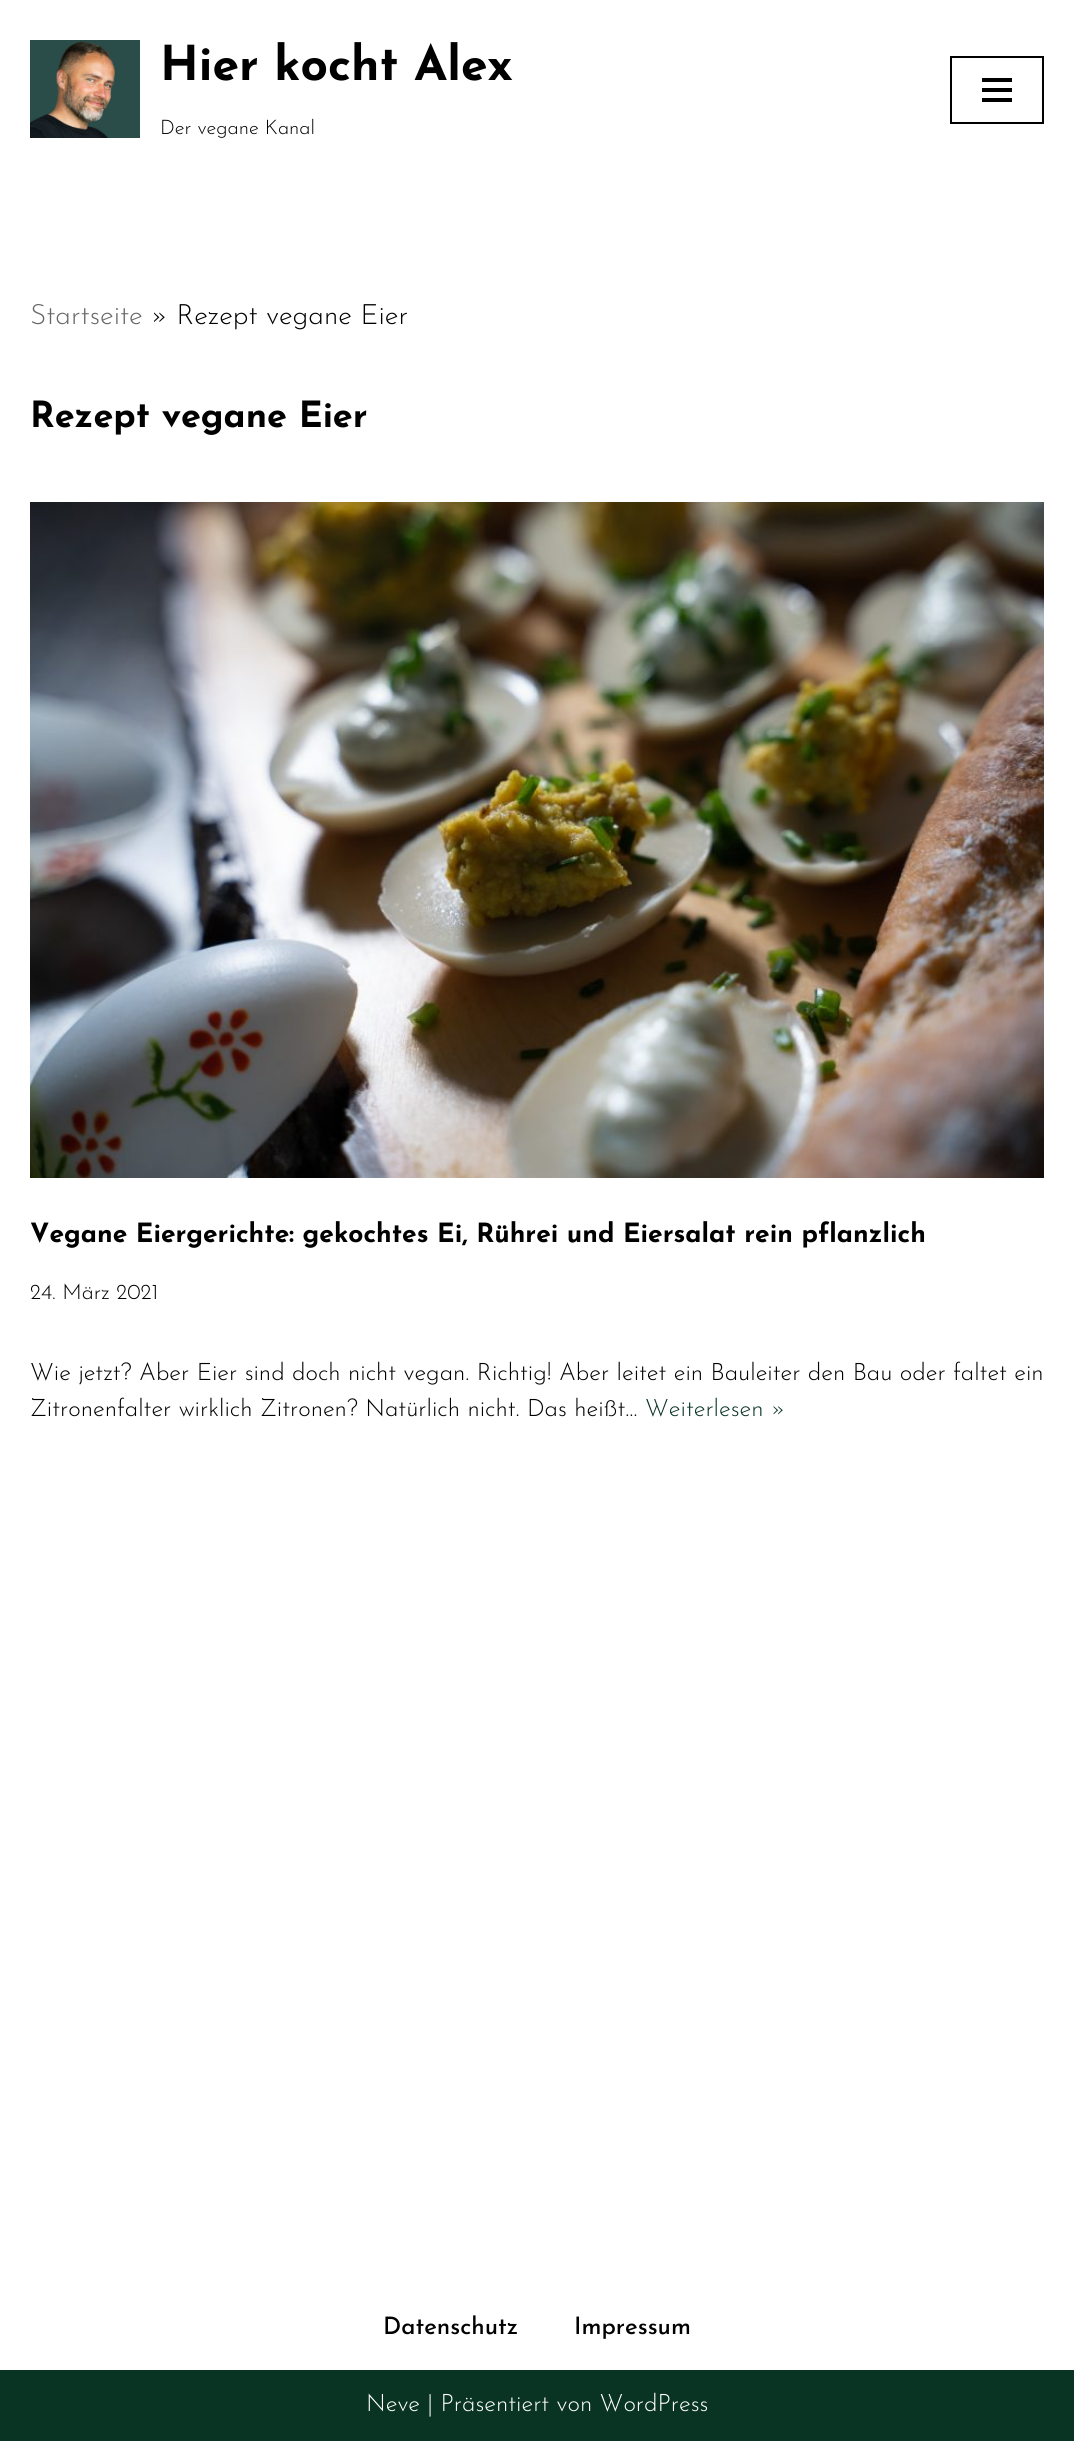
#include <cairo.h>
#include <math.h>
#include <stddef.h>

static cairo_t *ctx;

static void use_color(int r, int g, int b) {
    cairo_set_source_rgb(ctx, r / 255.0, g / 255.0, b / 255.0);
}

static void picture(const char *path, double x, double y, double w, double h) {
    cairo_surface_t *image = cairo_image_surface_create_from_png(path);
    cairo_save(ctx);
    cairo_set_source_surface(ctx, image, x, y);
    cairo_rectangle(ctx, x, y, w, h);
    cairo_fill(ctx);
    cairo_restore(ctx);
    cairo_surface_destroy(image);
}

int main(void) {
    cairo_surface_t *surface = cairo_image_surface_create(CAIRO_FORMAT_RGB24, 1074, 2441);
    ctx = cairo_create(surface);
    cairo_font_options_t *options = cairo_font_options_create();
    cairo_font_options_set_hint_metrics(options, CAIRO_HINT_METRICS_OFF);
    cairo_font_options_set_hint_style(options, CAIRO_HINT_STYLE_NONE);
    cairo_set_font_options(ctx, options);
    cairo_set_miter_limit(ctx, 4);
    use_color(255, 255, 255);
    cairo_paint(ctx);
    picture("img1.png", 30, 40, 110, 98);
    cairo_select_font_face(ctx, "Josefin Sans", CAIRO_FONT_SLANT_NORMAL, CAIRO_FONT_WEIGHT_BOLD);
    cairo_set_font_size(ctx, 48);
    use_color(0, 0, 0);
    cairo_move_to(ctx, 160, 80);
    cairo_show_text(ctx, "Hier kocht Alex");
    cairo_select_font_face(ctx, "Josefin Sans Light", CAIRO_FONT_SLANT_NORMAL, CAIRO_FONT_WEIGHT_NORMAL);
    cairo_set_font_size(ctx, 20);
    cairo_move_to(ctx, 160, 134);
    cairo_show_text(ctx, "Der vegane Kanal");
    cairo_rectangle(ctx, 951, 57, 92, 66);
    cairo_stroke(ctx);
    cairo_rectangle(ctx, 982, 78, 30, 4);
    cairo_fill(ctx);
    cairo_rectangle(ctx, 982, 88, 30, 4);
    cairo_fill(ctx);
    cairo_rectangle(ctx, 982, 98, 30, 4);
    cairo_fill(ctx);
    cairo_set_font_size(ctx, 28);
    use_color(103, 103, 103);
    cairo_move_to(ctx, 30, 324);
    cairo_show_text(ctx, "Startseite");
    use_color(0, 0, 0);
    cairo_move_to(ctx, 151, 324);
    cairo_show_text(ctx, "» Rezept vegane Eier");
    cairo_select_font_face(ctx, "Josefin Sans", CAIRO_FONT_SLANT_NORMAL, CAIRO_FONT_WEIGHT_BOLD);
    cairo_set_font_size(ctx, 36);
    cairo_move_to(ctx, 30, 427);
    cairo_show_text(ctx, "Rezept vegane Eier");
    picture("img2.png", 30, 502, 1014, 676);
    cairo_set_font_size(ctx, 26.4);
    cairo_move_to(ctx, 30, 1242);
    cairo_show_text(ctx, "Vegane Eiergerichte: gekochtes Ei, Rührei und Eiersalat rein pflanzlich");
    cairo_select_font_face(ctx, "Josefin Sans Light", CAIRO_FONT_SLANT_NORMAL, CAIRO_FONT_WEIGHT_NORMAL);
    cairo_set_font_size(ctx, 21.5);
    cairo_move_to(ctx, 30, 1299);
    cairo_show_text(ctx, "24. März 2021");
    cairo_set_font_size(ctx, 24);
    cairo_move_to(ctx, 30, 1380);
    cairo_show_text(ctx, "Wie jetzt? Aber Eier sind doch nicht vegan. Richtig! Aber leitet ein Bauleiter den Bau oder faltet ein");
    cairo_move_to(ctx, 30, 1416);
    cairo_show_text(ctx, "Zitronenfalter wirklich Zitronen? Natürlich nicht. Das heißt…");
    use_color(9, 52, 36);
    cairo_move_to(ctx, 645, 1416);
    cairo_show_text(ctx, "Weiterlesen »");
    cairo_select_font_face(ctx, "Josefin Sans Medium", CAIRO_FONT_SLANT_NORMAL, CAIRO_FONT_WEIGHT_NORMAL);
    use_color(0, 0, 0);
    cairo_move_to(ctx, 383, 2334);
    cairo_show_text(ctx, "Datenschutz");
    cairo_move_to(ctx, 574, 2334);
    cairo_show_text(ctx, "Impressum");
    use_color(9, 52, 36);
    cairo_rectangle(ctx, 0, 2370, 1074, 71);
    cairo_fill(ctx);
    cairo_select_font_face(ctx, "Josefin Sans Light", CAIRO_FONT_SLANT_NORMAL, CAIRO_FONT_WEIGHT_NORMAL);
    use_color(255, 255, 255);
    cairo_move_to(ctx, 366, 2411);
    cairo_show_text(ctx, "Neve | Präsentiert von WordPress");
    cairo_surface_write_to_png(surface, "result.png");
    cairo_font_options_destroy(options);
    cairo_destroy(ctx);
    cairo_surface_destroy(surface);
    return 0;
}
